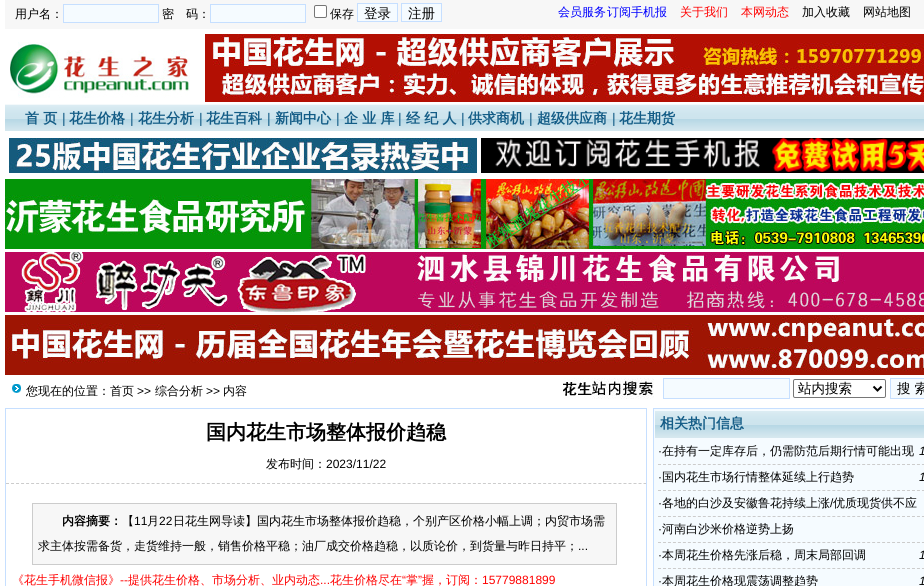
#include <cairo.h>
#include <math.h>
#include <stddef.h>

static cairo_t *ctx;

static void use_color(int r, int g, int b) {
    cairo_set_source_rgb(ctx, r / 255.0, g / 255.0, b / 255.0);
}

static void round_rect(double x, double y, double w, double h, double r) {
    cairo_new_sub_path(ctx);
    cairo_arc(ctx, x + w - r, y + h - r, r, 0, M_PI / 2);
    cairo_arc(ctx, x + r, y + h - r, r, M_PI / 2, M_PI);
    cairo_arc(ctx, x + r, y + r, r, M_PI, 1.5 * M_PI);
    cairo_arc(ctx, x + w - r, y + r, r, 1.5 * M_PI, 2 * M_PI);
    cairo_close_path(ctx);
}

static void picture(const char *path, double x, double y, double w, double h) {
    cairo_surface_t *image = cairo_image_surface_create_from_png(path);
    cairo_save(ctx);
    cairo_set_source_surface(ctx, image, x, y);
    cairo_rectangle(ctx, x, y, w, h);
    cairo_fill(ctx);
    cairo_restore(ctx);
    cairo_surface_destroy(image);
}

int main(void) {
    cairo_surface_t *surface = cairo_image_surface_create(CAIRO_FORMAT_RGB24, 924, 586);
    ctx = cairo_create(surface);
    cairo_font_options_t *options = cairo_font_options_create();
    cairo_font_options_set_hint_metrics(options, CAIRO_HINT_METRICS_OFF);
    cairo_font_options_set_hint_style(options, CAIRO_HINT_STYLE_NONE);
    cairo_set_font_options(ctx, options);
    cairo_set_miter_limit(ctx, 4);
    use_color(255, 255, 255);
    cairo_paint(ctx);
    use_color(247, 247, 247);
    cairo_rectangle(ctx, 5, 0, 919, 29);
    cairo_fill(ctx);
    cairo_select_font_face(ctx, "WenQuanYi Zen Hei Medium", CAIRO_FONT_SLANT_NORMAL, CAIRO_FONT_WEIGHT_NORMAL);
    cairo_set_font_size(ctx, 12);
    use_color(0, 0, 0);
    cairo_move_to(ctx, 15, 18);
    cairo_show_text(ctx, "用户名：");
    use_color(245, 251, 255);
    cairo_rectangle(ctx, 63.5, 4.5, 95, 18);
    cairo_fill_preserve(ctx);
    use_color(198, 223, 255);
    cairo_set_line_width(ctx, 1);
    cairo_stroke(ctx);
    use_color(0, 0, 0);
    cairo_move_to(ctx, 162, 18);
    cairo_show_text(ctx, "密　码：");
    use_color(245, 251, 255);
    cairo_rectangle(ctx, 210.5, 4.5, 95, 18);
    cairo_fill_preserve(ctx);
    use_color(198, 223, 255);
    cairo_stroke(ctx);
    use_color(255, 255, 255);
    round_rect(314.5, 5.5, 12, 12, 1.5);
    cairo_fill_preserve(ctx);
    use_color(118, 118, 118);
    cairo_stroke(ctx);
    use_color(0, 0, 0);
    cairo_move_to(ctx, 330, 18);
    cairo_show_text(ctx, "保存");
    use_color(245, 251, 255);
    cairo_rectangle(ctx, 357.5, 3.5, 40, 18);
    cairo_fill_preserve(ctx);
    use_color(198, 223, 255);
    cairo_stroke(ctx);
    cairo_set_font_size(ctx, 13.5);
    use_color(0, 0, 0);
    cairo_move_to(ctx, 364, 18);
    cairo_show_text(ctx, "登录");
    use_color(245, 251, 255);
    cairo_rectangle(ctx, 401.5, 3.5, 40, 18);
    cairo_fill_preserve(ctx);
    use_color(198, 223, 255);
    cairo_stroke(ctx);
    use_color(0, 0, 0);
    cairo_move_to(ctx, 408, 18);
    cairo_show_text(ctx, "注册");
    cairo_set_font_size(ctx, 12);
    use_color(0, 0, 255);
    cairo_move_to(ctx, 558, 16);
    cairo_show_text(ctx, "会员服务");
    cairo_move_to(ctx, 607, 16);
    cairo_show_text(ctx, "订阅手机报");
    use_color(255, 0, 0);
    cairo_move_to(ctx, 680, 16);
    cairo_show_text(ctx, "关于我们");
    cairo_move_to(ctx, 741, 16);
    cairo_show_text(ctx, "本网动态");
    use_color(0, 0, 0);
    cairo_move_to(ctx, 802, 16);
    cairo_show_text(ctx, "加入收藏");
    cairo_move_to(ctx, 863, 16);
    cairo_show_text(ctx, "网站地图");
    picture("img1.png", 10, 42, 180, 56);
    picture("img2.png", 205, 34, 719, 68);
    picture("img3.png", 5, 104, 919, 27);
    cairo_select_font_face(ctx, "WenQuanYi Zen Hei", CAIRO_FONT_SLANT_NORMAL, CAIRO_FONT_WEIGHT_BOLD);
    cairo_set_font_size(ctx, 14);
    use_color(19, 92, 134);
    cairo_move_to(ctx, 25, 123);
    cairo_show_text(ctx, "首 页");
    cairo_select_font_face(ctx, "Liberation Sans", CAIRO_FONT_SLANT_NORMAL, CAIRO_FONT_WEIGHT_NORMAL);
    cairo_move_to(ctx, 62, 123);
    cairo_show_text(ctx, "|");
    cairo_select_font_face(ctx, "WenQuanYi Zen Hei", CAIRO_FONT_SLANT_NORMAL, CAIRO_FONT_WEIGHT_BOLD);
    cairo_move_to(ctx, 69, 123);
    cairo_show_text(ctx, "花生价格");
    cairo_select_font_face(ctx, "Liberation Sans", CAIRO_FONT_SLANT_NORMAL, CAIRO_FONT_WEIGHT_NORMAL);
    cairo_move_to(ctx, 130, 123);
    cairo_show_text(ctx, "|");
    cairo_select_font_face(ctx, "WenQuanYi Zen Hei", CAIRO_FONT_SLANT_NORMAL, CAIRO_FONT_WEIGHT_BOLD);
    cairo_move_to(ctx, 138, 123);
    cairo_show_text(ctx, "花生分析");
    cairo_select_font_face(ctx, "Liberation Sans", CAIRO_FONT_SLANT_NORMAL, CAIRO_FONT_WEIGHT_NORMAL);
    cairo_move_to(ctx, 199, 123);
    cairo_show_text(ctx, "|");
    cairo_select_font_face(ctx, "WenQuanYi Zen Hei", CAIRO_FONT_SLANT_NORMAL, CAIRO_FONT_WEIGHT_BOLD);
    cairo_move_to(ctx, 206, 123);
    cairo_show_text(ctx, "花生百科");
    cairo_select_font_face(ctx, "Liberation Sans", CAIRO_FONT_SLANT_NORMAL, CAIRO_FONT_WEIGHT_NORMAL);
    cairo_move_to(ctx, 267, 123);
    cairo_show_text(ctx, "|");
    cairo_select_font_face(ctx, "WenQuanYi Zen Hei", CAIRO_FONT_SLANT_NORMAL, CAIRO_FONT_WEIGHT_BOLD);
    cairo_move_to(ctx, 275, 123);
    cairo_show_text(ctx, "新闻中心");
    cairo_select_font_face(ctx, "Liberation Sans", CAIRO_FONT_SLANT_NORMAL, CAIRO_FONT_WEIGHT_NORMAL);
    cairo_move_to(ctx, 336, 123);
    cairo_show_text(ctx, "|");
    cairo_select_font_face(ctx, "WenQuanYi Zen Hei", CAIRO_FONT_SLANT_NORMAL, CAIRO_FONT_WEIGHT_BOLD);
    cairo_move_to(ctx, 344, 123);
    cairo_show_text(ctx, "企 业 库");
    cairo_select_font_face(ctx, "Liberation Sans", CAIRO_FONT_SLANT_NORMAL, CAIRO_FONT_WEIGHT_NORMAL);
    cairo_move_to(ctx, 398, 123);
    cairo_show_text(ctx, "|");
    cairo_select_font_face(ctx, "WenQuanYi Zen Hei", CAIRO_FONT_SLANT_NORMAL, CAIRO_FONT_WEIGHT_BOLD);
    cairo_move_to(ctx, 406, 123);
    cairo_show_text(ctx, "经 纪 人");
    cairo_select_font_face(ctx, "Liberation Sans", CAIRO_FONT_SLANT_NORMAL, CAIRO_FONT_WEIGHT_NORMAL);
    cairo_move_to(ctx, 461, 123);
    cairo_show_text(ctx, "|");
    cairo_select_font_face(ctx, "WenQuanYi Zen Hei", CAIRO_FONT_SLANT_NORMAL, CAIRO_FONT_WEIGHT_BOLD);
    cairo_move_to(ctx, 468, 123);
    cairo_show_text(ctx, "供求商机");
    cairo_select_font_face(ctx, "Liberation Sans", CAIRO_FONT_SLANT_NORMAL, CAIRO_FONT_WEIGHT_NORMAL);
    cairo_move_to(ctx, 529, 123);
    cairo_show_text(ctx, "|");
    cairo_select_font_face(ctx, "WenQuanYi Zen Hei", CAIRO_FONT_SLANT_NORMAL, CAIRO_FONT_WEIGHT_BOLD);
    cairo_move_to(ctx, 537, 123);
    cairo_show_text(ctx, "超级供应商");
    cairo_select_font_face(ctx, "Liberation Sans", CAIRO_FONT_SLANT_NORMAL, CAIRO_FONT_WEIGHT_NORMAL);
    cairo_move_to(ctx, 612, 123);
    cairo_show_text(ctx, "|");
    cairo_select_font_face(ctx, "WenQuanYi Zen Hei", CAIRO_FONT_SLANT_NORMAL, CAIRO_FONT_WEIGHT_BOLD);
    cairo_move_to(ctx, 619, 123);
    cairo_show_text(ctx, "花生期货");
    picture("img4.png", 9, 138, 468, 35);
    picture("img5.png", 481, 138, 443, 35);
    picture("img6.png", 5, 179, 919, 70);
    picture("img7.png", 5, 252, 919, 60);
    picture("img8.png", 5, 315, 919, 60);
    picture("img9.png", 12, 384, 9, 9);
    cairo_select_font_face(ctx, "WenQuanYi Zen Hei Medium", CAIRO_FONT_SLANT_NORMAL, CAIRO_FONT_WEIGHT_NORMAL);
    cairo_set_font_size(ctx, 12);
    use_color(0, 0, 0);
    cairo_move_to(ctx, 26, 395);
    cairo_show_text(ctx, "您现在的位置：首页");
    cairo_select_font_face(ctx, "Liberation Sans", CAIRO_FONT_SLANT_NORMAL, CAIRO_FONT_WEIGHT_NORMAL);
    cairo_move_to(ctx, 137, 395);
    cairo_show_text(ctx, ">>");
    cairo_select_font_face(ctx, "WenQuanYi Zen Hei Medium", CAIRO_FONT_SLANT_NORMAL, CAIRO_FONT_WEIGHT_NORMAL);
    cairo_move_to(ctx, 155, 395);
    cairo_show_text(ctx, "综合分析");
    cairo_select_font_face(ctx, "Liberation Sans", CAIRO_FONT_SLANT_NORMAL, CAIRO_FONT_WEIGHT_NORMAL);
    cairo_move_to(ctx, 206, 395);
    cairo_show_text(ctx, ">>");
    cairo_select_font_face(ctx, "WenQuanYi Zen Hei Medium", CAIRO_FONT_SLANT_NORMAL, CAIRO_FONT_WEIGHT_NORMAL);
    cairo_move_to(ctx, 223, 395);
    cairo_show_text(ctx, "内容");
    picture("img10.png", 563, 378, 91, 21);
    use_color(245, 251, 255);
    cairo_rectangle(ctx, 663.5, 378.5, 126, 20);
    cairo_fill_preserve(ctx);
    use_color(198, 223, 255);
    cairo_stroke(ctx);
    round_rect(793.5, 379.5, 92, 18, 1.5);
    use_color(118, 118, 118);
    cairo_stroke(ctx);
    cairo_new_path(ctx);
    cairo_move_to(ctx, 873.5, 386.5);
    cairo_line_to(ctx, 877.5, 390.5);
    cairo_line_to(ctx, 881.5, 386.5);
    use_color(0, 0, 0);
    cairo_set_line_width(ctx, 2);
    cairo_stroke(ctx);
    cairo_set_font_size(ctx, 13.5);
    cairo_move_to(ctx, 798, 393);
    cairo_show_text(ctx, "站内搜索");
    use_color(245, 251, 255);
    cairo_rectangle(ctx, 890.5, 378.5, 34, 20);
    cairo_fill_preserve(ctx);
    use_color(198, 223, 255);
    cairo_set_line_width(ctx, 1);
    cairo_stroke(ctx);
    use_color(0, 0, 0);
    cairo_move_to(ctx, 897, 393);
    cairo_show_text(ctx, "搜 索");
    cairo_rectangle(ctx, 5.5, 408.5, 641, 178);
    use_color(198, 223, 255);
    cairo_stroke(ctx);
    cairo_select_font_face(ctx, "WenQuanYi Zen Hei", CAIRO_FONT_SLANT_NORMAL, CAIRO_FONT_WEIGHT_BOLD);
    cairo_set_font_size(ctx, 20);
    use_color(0, 0, 0);
    cairo_move_to(ctx, 206, 439);
    cairo_show_text(ctx, "国内花生市场整体报价趋稳");
    cairo_new_path(ctx);
    cairo_move_to(ctx, 6, 483.5);
    cairo_line_to(ctx, 646, 483.5);
    use_color(204, 204, 204);
    cairo_set_dash(ctx, (double[]){3, 2.02}, 2, 0);
    cairo_stroke(ctx);
    cairo_select_font_face(ctx, "WenQuanYi Zen Hei Medium", CAIRO_FONT_SLANT_NORMAL, CAIRO_FONT_WEIGHT_NORMAL);
    cairo_set_font_size(ctx, 12);
    use_color(0, 0, 0);
    cairo_move_to(ctx, 266, 468);
    cairo_show_text(ctx, "发布时间：");
    cairo_select_font_face(ctx, "Liberation Sans", CAIRO_FONT_SLANT_NORMAL, CAIRO_FONT_WEIGHT_NORMAL);
    cairo_move_to(ctx, 326, 468);
    cairo_show_text(ctx, "2023/11/22");
    use_color(247, 247, 247);
    cairo_rectangle(ctx, 32.5, 503.5, 584, 61);
    cairo_fill_preserve(ctx);
    use_color(204, 204, 204);
    cairo_set_dash(ctx, NULL, 0, 0);
    cairo_stroke(ctx);
    cairo_select_font_face(ctx, "WenQuanYi Zen Hei", CAIRO_FONT_SLANT_NORMAL, CAIRO_FONT_WEIGHT_BOLD);
    use_color(0, 0, 0);
    cairo_move_to(ctx, 62, 525);
    cairo_show_text(ctx, "内容摘要：");
    cairo_select_font_face(ctx, "WenQuanYi Zen Hei Medium", CAIRO_FONT_SLANT_NORMAL, CAIRO_FONT_WEIGHT_NORMAL);
    cairo_move_to(ctx, 122, 525);
    cairo_show_text(ctx, "【");
    cairo_select_font_face(ctx, "Liberation Sans", CAIRO_FONT_SLANT_NORMAL, CAIRO_FONT_WEIGHT_NORMAL);
    cairo_move_to(ctx, 134, 525);
    cairo_show_text(ctx, "11");
    cairo_select_font_face(ctx, "WenQuanYi Zen Hei Medium", CAIRO_FONT_SLANT_NORMAL, CAIRO_FONT_WEIGHT_NORMAL);
    cairo_move_to(ctx, 147, 525);
    cairo_show_text(ctx, "月");
    cairo_select_font_face(ctx, "Liberation Sans", CAIRO_FONT_SLANT_NORMAL, CAIRO_FONT_WEIGHT_NORMAL);
    cairo_move_to(ctx, 159, 525);
    cairo_show_text(ctx, "22");
    cairo_select_font_face(ctx, "WenQuanYi Zen Hei Medium", CAIRO_FONT_SLANT_NORMAL, CAIRO_FONT_WEIGHT_NORMAL);
    cairo_move_to(ctx, 173, 525);
    cairo_show_text(ctx, "日花生网导读】国内花生市场整体报价趋稳，个别产区价格小幅上调；内贸市场需");
    cairo_move_to(ctx, 38, 550);
    cairo_show_text(ctx, "求主体按需备货，走货维持一般，销售价格平稳；油厂成交价格趋稳，以质论价，到货量与昨日持平；");
    cairo_select_font_face(ctx, "Liberation Sans", CAIRO_FONT_SLANT_NORMAL, CAIRO_FONT_WEIGHT_NORMAL);
    cairo_move_to(ctx, 578, 550);
    cairo_show_text(ctx, "...");
    cairo_select_font_face(ctx, "WenQuanYi Zen Hei Medium", CAIRO_FONT_SLANT_NORMAL, CAIRO_FONT_WEIGHT_NORMAL);
    use_color(255, 0, 0);
    cairo_move_to(ctx, 12, 584);
    cairo_show_text(ctx, "《花生手机微信报》");
    cairo_select_font_face(ctx, "Liberation Sans", CAIRO_FONT_SLANT_NORMAL, CAIRO_FONT_WEIGHT_NORMAL);
    cairo_move_to(ctx, 120, 584);
    cairo_show_text(ctx, "--");
    cairo_select_font_face(ctx, "WenQuanYi Zen Hei Medium", CAIRO_FONT_SLANT_NORMAL, CAIRO_FONT_WEIGHT_NORMAL);
    cairo_move_to(ctx, 128, 584);
    cairo_show_text(ctx, "提供花生价格、市场分析、业内动态");
    cairo_move_to(ctx, 330, 584);
    cairo_show_text(ctx, "花生价格尽在");
    cairo_select_font_face(ctx, "Liberation Sans", CAIRO_FONT_SLANT_NORMAL, CAIRO_FONT_WEIGHT_NORMAL);
    cairo_move_to(ctx, 402, 584);
    cairo_show_text(ctx, "“");
    cairo_select_font_face(ctx, "WenQuanYi Zen Hei Medium", CAIRO_FONT_SLANT_NORMAL, CAIRO_FONT_WEIGHT_NORMAL);
    cairo_move_to(ctx, 406, 584);
    cairo_show_text(ctx, "掌");
    cairo_select_font_face(ctx, "Liberation Sans", CAIRO_FONT_SLANT_NORMAL, CAIRO_FONT_WEIGHT_NORMAL);
    cairo_move_to(ctx, 418, 584);
    cairo_show_text(ctx, "”");
    cairo_select_font_face(ctx, "WenQuanYi Zen Hei Medium", CAIRO_FONT_SLANT_NORMAL, CAIRO_FONT_WEIGHT_NORMAL);
    cairo_move_to(ctx, 422, 584);
    cairo_show_text(ctx, "握，订阅：");
    cairo_select_font_face(ctx, "Liberation Sans", CAIRO_FONT_SLANT_NORMAL, CAIRO_FONT_WEIGHT_NORMAL);
    cairo_move_to(ctx, 482, 584);
    cairo_show_text(ctx, "15779881899");
    cairo_move_to(ctx, 320, 584);
    cairo_show_text(ctx, "...");
    use_color(245, 251, 255);
    cairo_rectangle(ctx, 653.5, 408.5, 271, 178);
    cairo_fill_preserve(ctx);
    use_color(198, 223, 255);
    cairo_stroke(ctx);
    picture("img11.png", 655, 411, 269, 27);
    cairo_select_font_face(ctx, "WenQuanYi Zen Hei", CAIRO_FONT_SLANT_NORMAL, CAIRO_FONT_WEIGHT_BOLD);
    cairo_set_font_size(ctx, 14);
    use_color(19, 92, 134);
    cairo_move_to(ctx, 660, 428);
    cairo_show_text(ctx, "相关热门信息");
    cairo_new_path(ctx);
    cairo_move_to(ctx, 658, 464.5);
    cairo_line_to(ctx, 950, 464.5);
    use_color(204, 204, 204);
    cairo_set_dash(ctx, (double[]){3, 1.98}, 2, 0);
    cairo_stroke(ctx);
    cairo_select_font_face(ctx, "Liberation Sans", CAIRO_FONT_SLANT_NORMAL, CAIRO_FONT_WEIGHT_NORMAL);
    cairo_set_font_size(ctx, 12);
    use_color(0, 0, 0);
    cairo_move_to(ctx, 658, 455);
    cairo_show_text(ctx, "·");
    cairo_select_font_face(ctx, "WenQuanYi Zen Hei Medium", CAIRO_FONT_SLANT_NORMAL, CAIRO_FONT_WEIGHT_NORMAL);
    cairo_move_to(ctx, 662, 455);
    cairo_show_text(ctx, "在持有一定库存后，仍需防范后期行情可能出现");
    cairo_select_font_face(ctx, "Liberation Sans", CAIRO_FONT_SLANT_ITALIC, CAIRO_FONT_WEIGHT_NORMAL);
    cairo_move_to(ctx, 919, 455);
    cairo_show_text(ctx, "1");
    cairo_new_path(ctx);
    cairo_move_to(ctx, 658, 490.5);
    cairo_line_to(ctx, 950, 490.5);
    use_color(204, 204, 204);
    cairo_stroke(ctx);
    cairo_select_font_face(ctx, "Liberation Sans", CAIRO_FONT_SLANT_NORMAL, CAIRO_FONT_WEIGHT_NORMAL);
    use_color(0, 0, 0);
    cairo_move_to(ctx, 658, 481);
    cairo_show_text(ctx, "·");
    cairo_select_font_face(ctx, "WenQuanYi Zen Hei Medium", CAIRO_FONT_SLANT_NORMAL, CAIRO_FONT_WEIGHT_NORMAL);
    cairo_move_to(ctx, 662, 481);
    cairo_show_text(ctx, "国内花生市场行情整体延续上行趋势");
    cairo_select_font_face(ctx, "Liberation Sans", CAIRO_FONT_SLANT_ITALIC, CAIRO_FONT_WEIGHT_NORMAL);
    cairo_move_to(ctx, 919, 481);
    cairo_show_text(ctx, "1");
    cairo_new_path(ctx);
    cairo_move_to(ctx, 658, 516.5);
    cairo_line_to(ctx, 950, 516.5);
    use_color(204, 204, 204);
    cairo_stroke(ctx);
    cairo_select_font_face(ctx, "Liberation Sans", CAIRO_FONT_SLANT_NORMAL, CAIRO_FONT_WEIGHT_NORMAL);
    use_color(0, 0, 0);
    cairo_move_to(ctx, 658, 507);
    cairo_show_text(ctx, "·");
    cairo_select_font_face(ctx, "WenQuanYi Zen Hei Medium", CAIRO_FONT_SLANT_NORMAL, CAIRO_FONT_WEIGHT_NORMAL);
    cairo_move_to(ctx, 662, 507);
    cairo_show_text(ctx, "各地的白沙及安徽鲁花持续上涨");
    cairo_select_font_face(ctx, "Liberation Sans", CAIRO_FONT_SLANT_NORMAL, CAIRO_FONT_WEIGHT_NORMAL);
    cairo_move_to(ctx, 830, 507);
    cairo_show_text(ctx, "/");
    cairo_select_font_face(ctx, "WenQuanYi Zen Hei Medium", CAIRO_FONT_SLANT_NORMAL, CAIRO_FONT_WEIGHT_NORMAL);
    cairo_move_to(ctx, 833, 507);
    cairo_show_text(ctx, "优质现货供不应");
    cairo_new_path(ctx);
    cairo_move_to(ctx, 658, 542.5);
    cairo_line_to(ctx, 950, 542.5);
    use_color(204, 204, 204);
    cairo_stroke(ctx);
    cairo_select_font_face(ctx, "Liberation Sans", CAIRO_FONT_SLANT_NORMAL, CAIRO_FONT_WEIGHT_NORMAL);
    use_color(0, 0, 0);
    cairo_move_to(ctx, 658, 533);
    cairo_show_text(ctx, "·");
    cairo_select_font_face(ctx, "WenQuanYi Zen Hei Medium", CAIRO_FONT_SLANT_NORMAL, CAIRO_FONT_WEIGHT_NORMAL);
    cairo_move_to(ctx, 662, 533);
    cairo_show_text(ctx, "河南白沙米价格逆势上扬");
    cairo_new_path(ctx);
    cairo_move_to(ctx, 658, 568.5);
    cairo_line_to(ctx, 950, 568.5);
    use_color(204, 204, 204);
    cairo_stroke(ctx);
    cairo_select_font_face(ctx, "Liberation Sans", CAIRO_FONT_SLANT_NORMAL, CAIRO_FONT_WEIGHT_NORMAL);
    use_color(0, 0, 0);
    cairo_move_to(ctx, 658, 559);
    cairo_show_text(ctx, "·");
    cairo_select_font_face(ctx, "WenQuanYi Zen Hei Medium", CAIRO_FONT_SLANT_NORMAL, CAIRO_FONT_WEIGHT_NORMAL);
    cairo_move_to(ctx, 662, 559);
    cairo_show_text(ctx, "本周花生价格先涨后稳，周末局部回调");
    cairo_select_font_face(ctx, "Liberation Sans", CAIRO_FONT_SLANT_ITALIC, CAIRO_FONT_WEIGHT_NORMAL);
    cairo_move_to(ctx, 919, 559);
    cairo_show_text(ctx, "1");
    cairo_select_font_face(ctx, "Liberation Sans", CAIRO_FONT_SLANT_NORMAL, CAIRO_FONT_WEIGHT_NORMAL);
    cairo_move_to(ctx, 658, 585);
    cairo_show_text(ctx, "·");
    cairo_select_font_face(ctx, "WenQuanYi Zen Hei Medium", CAIRO_FONT_SLANT_NORMAL, CAIRO_FONT_WEIGHT_NORMAL);
    cairo_move_to(ctx, 662, 585);
    cairo_show_text(ctx, "本周花生价格现震荡调整趋势");
    cairo_select_font_face(ctx, "Liberation Sans", CAIRO_FONT_SLANT_ITALIC, CAIRO_FONT_WEIGHT_NORMAL);
    cairo_move_to(ctx, 919, 585);
    cairo_show_text(ctx, "1");
    cairo_surface_write_to_png(surface, "result.png");
    cairo_font_options_destroy(options);
    cairo_destroy(ctx);
    cairo_surface_destroy(surface);
    return 0;
}
